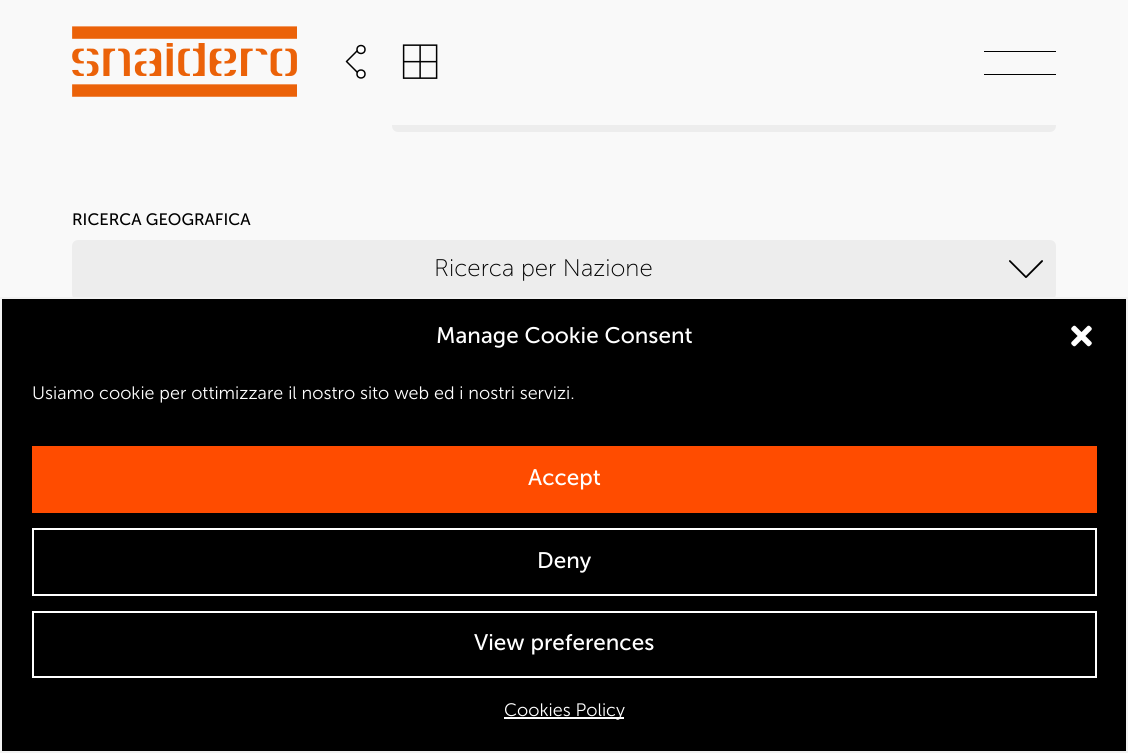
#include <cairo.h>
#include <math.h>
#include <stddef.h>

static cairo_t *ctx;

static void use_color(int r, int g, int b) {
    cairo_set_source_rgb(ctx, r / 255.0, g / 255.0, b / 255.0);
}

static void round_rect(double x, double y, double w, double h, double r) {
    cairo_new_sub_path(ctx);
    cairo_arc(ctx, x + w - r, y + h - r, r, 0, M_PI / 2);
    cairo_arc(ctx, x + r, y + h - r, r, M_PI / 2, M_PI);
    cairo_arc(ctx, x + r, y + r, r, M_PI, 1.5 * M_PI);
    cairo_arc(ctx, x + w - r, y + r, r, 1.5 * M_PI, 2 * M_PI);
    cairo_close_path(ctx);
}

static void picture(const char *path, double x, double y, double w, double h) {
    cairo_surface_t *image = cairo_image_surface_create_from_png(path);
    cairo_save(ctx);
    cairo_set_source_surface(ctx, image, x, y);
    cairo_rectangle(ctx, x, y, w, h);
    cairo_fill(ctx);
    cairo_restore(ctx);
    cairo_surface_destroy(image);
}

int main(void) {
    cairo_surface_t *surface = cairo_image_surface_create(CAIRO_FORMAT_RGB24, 1128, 753);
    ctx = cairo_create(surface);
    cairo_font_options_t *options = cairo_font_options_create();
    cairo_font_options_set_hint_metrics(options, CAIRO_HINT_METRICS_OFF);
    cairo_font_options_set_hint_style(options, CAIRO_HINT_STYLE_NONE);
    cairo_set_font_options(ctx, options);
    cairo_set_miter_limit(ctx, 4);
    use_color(249, 249, 249);
    cairo_paint(ctx);
    use_color(237, 237, 237);
    round_rect(392, 72, 664, 60, 6);
    cairo_fill(ctx);
    use_color(249, 249, 249);
    cairo_rectangle(ctx, 392, 72, 664, 53);
    cairo_fill(ctx);
    picture("img1.png", 72, 26, 225, 71);
    use_color(255, 255, 255);
    cairo_arc(ctx, 361, 49.5, 4, 0, 2 * M_PI);
    cairo_fill_preserve(ctx);
    use_color(0, 0, 0);
    cairo_set_line_width(ctx, 1.5);
    cairo_stroke(ctx);
    use_color(255, 255, 255);
    cairo_arc(ctx, 361, 74, 4, 0, 2 * M_PI);
    cairo_fill_preserve(ctx);
    use_color(0, 0, 0);
    cairo_stroke(ctx);
    cairo_new_path(ctx);
    cairo_move_to(ctx, 357, 72);
    cairo_line_to(ctx, 346.5, 61.5);
    cairo_line_to(ctx, 357, 51);
    cairo_set_line_cap(ctx, CAIRO_LINE_CAP_ROUND);
    cairo_set_line_join(ctx, CAIRO_LINE_JOIN_ROUND);
    cairo_stroke(ctx);
    picture("img2.png", 402, 44, 36, 35);
    cairo_set_fill_rule(ctx, CAIRO_FILL_RULE_EVEN_ODD);
    cairo_new_path(ctx);
    cairo_move_to(ctx, 984, 51);
    cairo_line_to(ctx, 1056, 51);
    cairo_line_to(ctx, 1056, 52);
    cairo_line_to(ctx, 984, 52);
    cairo_close_path(ctx);
    cairo_move_to(ctx, 984, 74);
    cairo_line_to(ctx, 1056, 74);
    cairo_line_to(ctx, 1056, 75);
    cairo_line_to(ctx, 984, 75);
    cairo_close_path(ctx);
    cairo_fill(ctx);
    cairo_select_font_face(ctx, "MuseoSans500", CAIRO_FONT_SLANT_NORMAL, CAIRO_FONT_WEIGHT_NORMAL);
    cairo_set_font_size(ctx, 16.5);
    cairo_move_to(ctx, 72, 225);
    cairo_show_text(ctx, "RICERCA GEOGRAFICA");
    use_color(237, 237, 237);
    round_rect(72, 240, 984, 60, 6);
    cairo_fill(ctx);
    cairo_select_font_face(ctx, "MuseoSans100", CAIRO_FONT_SLANT_NORMAL, CAIRO_FONT_WEIGHT_NORMAL);
    cairo_set_font_size(ctx, 24);
    use_color(0, 0, 0);
    cairo_move_to(ctx, 434, 276);
    cairo_show_text(ctx, "Ricerca per Nazione");
    picture("img3.png", 1009, 260, 34, 18);
    cairo_rectangle(ctx, 1, 298, 1126, 454);
    cairo_fill_preserve(ctx);
    use_color(242, 242, 242);
    cairo_set_line_width(ctx, 2);
    cairo_set_line_cap(ctx, CAIRO_LINE_CAP_BUTT);
    cairo_set_line_join(ctx, CAIRO_LINE_JOIN_MITER);
    cairo_stroke(ctx);
    cairo_select_font_face(ctx, "MuseoSans500", CAIRO_FONT_SLANT_NORMAL, CAIRO_FONT_WEIGHT_NORMAL);
    cairo_set_font_size(ctx, 22.5);
    use_color(255, 255, 255);
    cairo_move_to(ctx, 436, 343);
    cairo_show_text(ctx, "Manage Cookie Consent");
    picture("img4.png", 1071, 325, 21, 22);
    cairo_select_font_face(ctx, "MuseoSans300", CAIRO_FONT_SLANT_NORMAL, CAIRO_FONT_WEIGHT_NORMAL);
    cairo_set_font_size(ctx, 18);
    cairo_move_to(ctx, 32, 399);
    cairo_show_text(ctx, "Usiamo cookie per ottimizzare il nostro sito web ed i nostri servizi.");
    use_color(255, 76, 0);
    cairo_rectangle(ctx, 32, 446, 1065, 67);
    cairo_fill(ctx);
    cairo_select_font_face(ctx, "MuseoSans500", CAIRO_FONT_SLANT_NORMAL, CAIRO_FONT_WEIGHT_NORMAL);
    cairo_set_font_size(ctx, 22.5);
    use_color(255, 255, 255);
    cairo_move_to(ctx, 528, 485);
    cairo_show_text(ctx, "Accept");
    cairo_rectangle(ctx, 33, 529, 1063, 66);
    cairo_stroke(ctx);
    cairo_move_to(ctx, 537, 568);
    cairo_show_text(ctx, "Deny");
    cairo_rectangle(ctx, 33, 612, 1063, 65);
    cairo_stroke(ctx);
    cairo_move_to(ctx, 474, 650);
    cairo_show_text(ctx, "View preferences");
    cairo_rectangle(ctx, 504, 717, 120, 2);
    cairo_fill(ctx);
    cairo_select_font_face(ctx, "MuseoSans300", CAIRO_FONT_SLANT_NORMAL, CAIRO_FONT_WEIGHT_NORMAL);
    cairo_set_font_size(ctx, 18);
    cairo_move_to(ctx, 504, 716);
    cairo_show_text(ctx, "Cookies Policy");
    cairo_surface_write_to_png(surface, "result.png");
    cairo_font_options_destroy(options);
    cairo_destroy(ctx);
    cairo_surface_destroy(surface);
    return 0;
}
